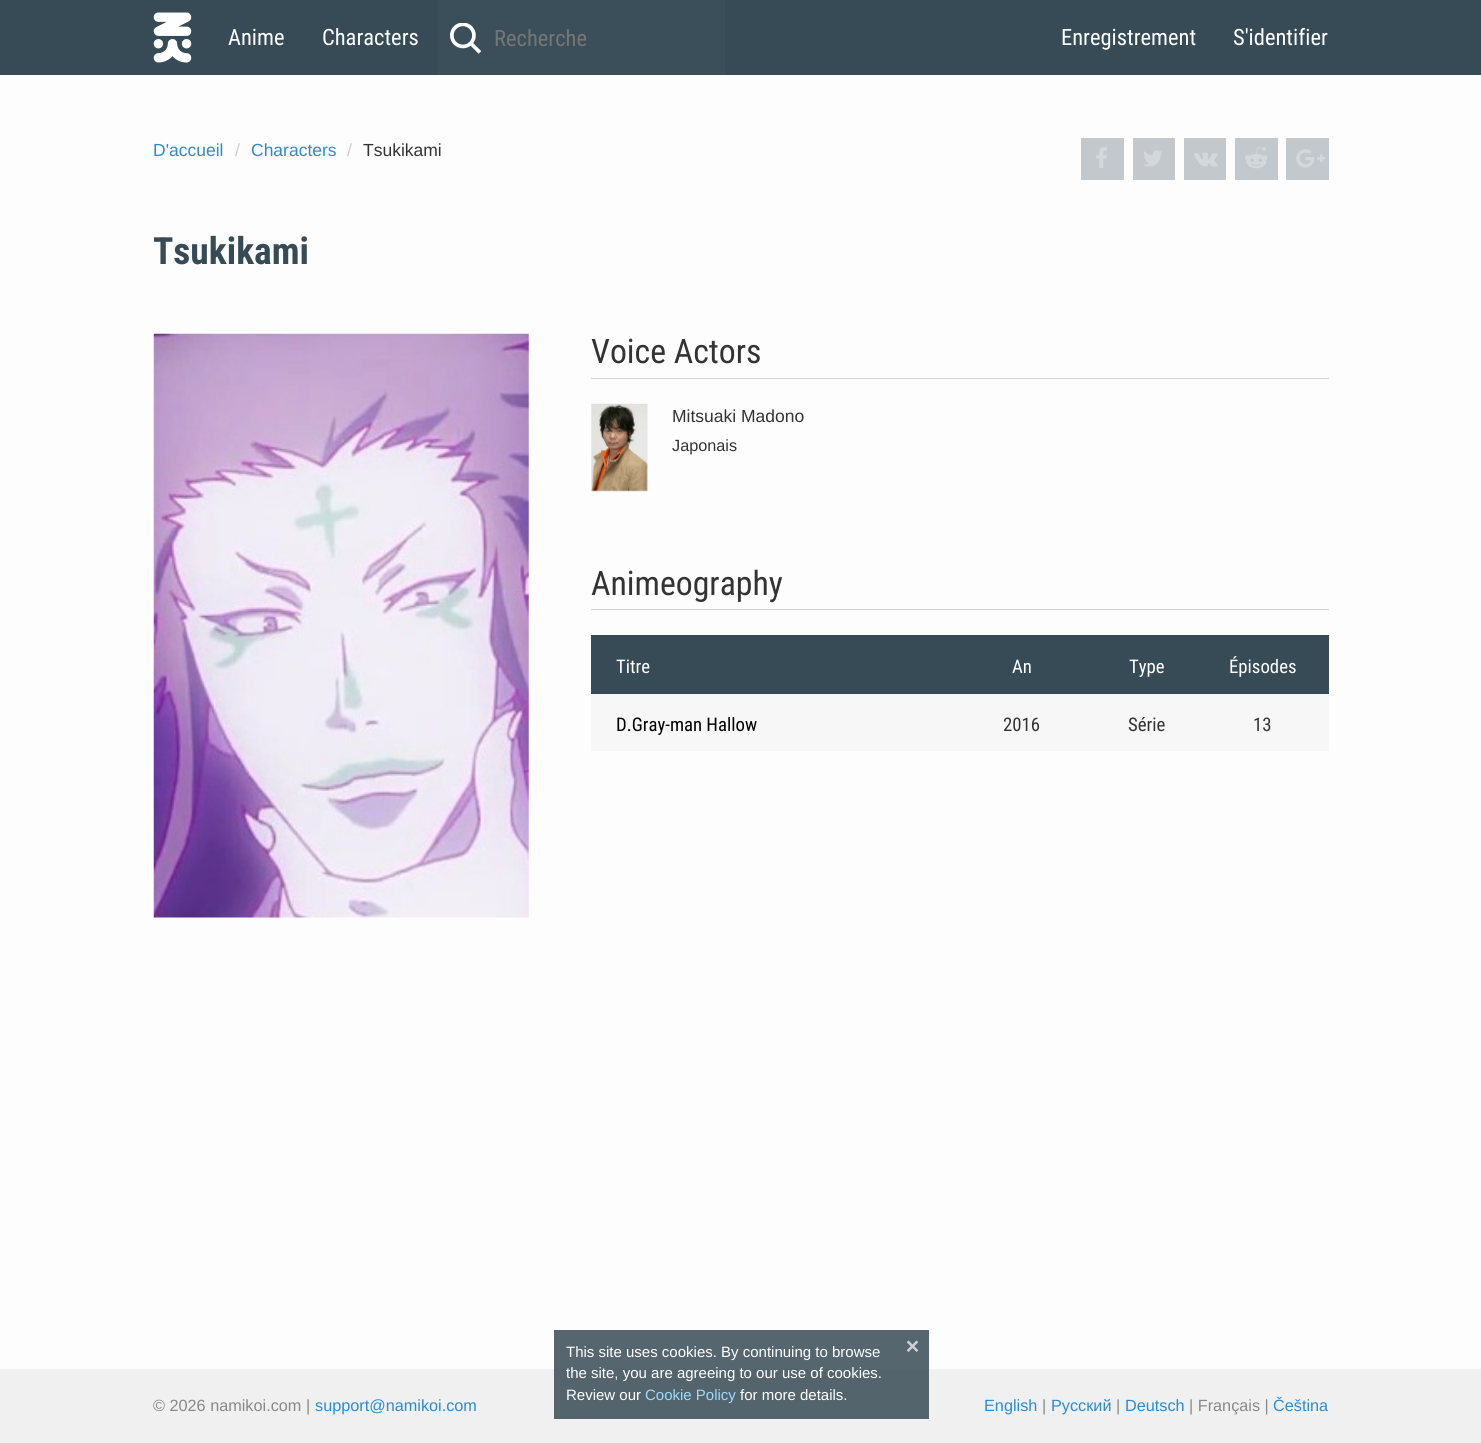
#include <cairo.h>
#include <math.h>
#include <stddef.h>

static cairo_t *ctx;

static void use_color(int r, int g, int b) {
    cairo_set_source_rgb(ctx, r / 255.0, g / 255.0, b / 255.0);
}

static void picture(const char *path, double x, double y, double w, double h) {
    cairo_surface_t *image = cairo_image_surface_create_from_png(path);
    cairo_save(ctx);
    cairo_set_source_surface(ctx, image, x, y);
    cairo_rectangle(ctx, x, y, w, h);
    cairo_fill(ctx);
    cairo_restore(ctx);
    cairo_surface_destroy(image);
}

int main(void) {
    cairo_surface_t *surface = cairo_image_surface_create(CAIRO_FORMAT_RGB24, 1481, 1443);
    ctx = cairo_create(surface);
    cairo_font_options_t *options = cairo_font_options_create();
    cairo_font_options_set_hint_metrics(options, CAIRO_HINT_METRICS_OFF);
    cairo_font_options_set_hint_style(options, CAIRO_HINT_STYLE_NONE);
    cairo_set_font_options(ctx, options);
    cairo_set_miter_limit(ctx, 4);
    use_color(253, 253, 253);
    cairo_paint(ctx);
    use_color(85, 102, 111);
    cairo_rectangle(ctx, 554, 1330, 375, 39);
    cairo_fill(ctx);
    use_color(55, 75, 86);
    cairo_rectangle(ctx, 0, 0, 1481, 75);
    cairo_fill(ctx);
    picture("img1.png", 153, 12, 39, 51);
    cairo_select_font_face(ctx, "Roboto Condensed", CAIRO_FONT_SLANT_NORMAL, CAIRO_FONT_WEIGHT_NORMAL);
    cairo_set_font_size(ctx, 22.5);
    use_color(255, 255, 255);
    cairo_move_to(ctx, 228, 45);
    cairo_show_text(ctx, "Anime");
    cairo_move_to(ctx, 322, 45);
    cairo_show_text(ctx, "Characters");
    use_color(58, 79, 90);
    cairo_rectangle(ctx, 438, 0, 287, 75);
    cairo_fill(ctx);
    picture("img2.png", 450, 23, 31, 31);
    use_color(117, 117, 117);
    cairo_move_to(ctx, 494, 46);
    cairo_show_text(ctx, "Recherche");
    use_color(255, 255, 255);
    cairo_move_to(ctx, 1061, 45);
    cairo_show_text(ctx, "Enregistrement");
    cairo_move_to(ctx, 1233, 45);
    cairo_show_text(ctx, "S'identifier");
    cairo_select_font_face(ctx, "Liberation Sans", CAIRO_FONT_SLANT_NORMAL, CAIRO_FONT_WEIGHT_NORMAL);
    cairo_set_font_size(ctx, 17.5);
    use_color(45, 138, 208);
    cairo_move_to(ctx, 153, 156);
    cairo_show_text(ctx, "D'accueil");
    use_color(204, 204, 204);
    cairo_move_to(ctx, 235, 156);
    cairo_show_text(ctx, "/");
    use_color(45, 138, 208);
    cairo_move_to(ctx, 251, 156);
    cairo_show_text(ctx, "Characters");
    use_color(204, 204, 204);
    cairo_move_to(ctx, 347, 156);
    cairo_show_text(ctx, "/");
    use_color(51, 51, 51);
    cairo_move_to(ctx, 363, 156);
    cairo_show_text(ctx, "Tsukikami");
    use_color(194, 200, 203);
    cairo_rectangle(ctx, 1081, 138, 43, 42);
    cairo_fill(ctx);
    picture("img3.png", 1096, 147, 11, 21);
    cairo_rectangle(ctx, 1133, 138, 42, 42);
    cairo_fill(ctx);
    picture("img4.png", 1143, 150, 20, 17);
    cairo_rectangle(ctx, 1184, 138, 42, 42);
    cairo_fill(ctx);
    picture("img5.png", 1194, 152, 24, 15);
    cairo_rectangle(ctx, 1235, 138, 43, 42);
    cairo_fill(ctx);
    picture("img6.png", 1245, 147, 23, 22);
    cairo_rectangle(ctx, 1286, 138, 43, 42);
    cairo_fill(ctx);
    picture("img7.png", 1296, 149, 29, 19);
    cairo_select_font_face(ctx, "Roboto Condensed", CAIRO_FONT_SLANT_NORMAL, CAIRO_FONT_WEIGHT_BOLD);
    cairo_set_font_size(ctx, 37.5);
    use_color(55, 75, 86);
    cairo_move_to(ctx, 153, 264);
    cairo_show_text(ctx, "Tsukikami");
    picture("img8.png", 153, 333, 376, 585);
    use_color(208, 210, 212);
    cairo_rectangle(ctx, 591, 378, 738, 1);
    cairo_fill(ctx);
    cairo_select_font_face(ctx, "Roboto Condensed", CAIRO_FONT_SLANT_NORMAL, CAIRO_FONT_WEIGHT_NORMAL);
    cairo_set_font_size(ctx, 33.75);
    use_color(51, 51, 51);
    cairo_move_to(ctx, 591, 363);
    cairo_show_text(ctx, "Voice Actors");
    picture("img9.png", 591, 403, 57, 89);
    cairo_select_font_face(ctx, "Liberation Sans", CAIRO_FONT_SLANT_NORMAL, CAIRO_FONT_WEIGHT_NORMAL);
    cairo_set_font_size(ctx, 17.5);
    cairo_move_to(ctx, 672, 422);
    cairo_show_text(ctx, "Mitsuaki Madono");
    cairo_set_font_size(ctx, 16.25);
    cairo_move_to(ctx, 672, 451);
    cairo_show_text(ctx, "Japonais");
    use_color(208, 210, 212);
    cairo_rectangle(ctx, 591, 609, 738, 1);
    cairo_fill(ctx);
    cairo_select_font_face(ctx, "Roboto Condensed", CAIRO_FONT_SLANT_NORMAL, CAIRO_FONT_WEIGHT_NORMAL);
    cairo_set_font_size(ctx, 33.75);
    use_color(51, 51, 51);
    cairo_move_to(ctx, 591, 595);
    cairo_show_text(ctx, "Animeography");
    use_color(55, 75, 86);
    cairo_rectangle(ctx, 591, 635, 738, 59);
    cairo_fill(ctx);
    cairo_set_font_size(ctx, 18.75);
    use_color(255, 255, 255);
    cairo_move_to(ctx, 616, 673);
    cairo_show_text(ctx, "Titre");
    cairo_move_to(ctx, 1012, 673);
    cairo_show_text(ctx, "An");
    cairo_move_to(ctx, 1129, 673);
    cairo_show_text(ctx, "Type");
    cairo_move_to(ctx, 1229, 673);
    cairo_show_text(ctx, "Épisodes");
    use_color(247, 247, 247);
    cairo_rectangle(ctx, 591, 694, 738, 57);
    cairo_fill(ctx);
    use_color(0, 0, 0);
    cairo_move_to(ctx, 616, 731);
    cairo_show_text(ctx, "D.Gray-man Hallow");
    use_color(51, 51, 51);
    cairo_move_to(ctx, 1003, 731);
    cairo_show_text(ctx, "2016");
    cairo_move_to(ctx, 1128, 731);
    cairo_show_text(ctx, "Série");
    cairo_move_to(ctx, 1253, 731);
    cairo_show_text(ctx, "13");
    cairo_select_font_face(ctx, "Liberation Sans", CAIRO_FONT_SLANT_NORMAL, CAIRO_FONT_WEIGHT_NORMAL);
    cairo_set_font_size(ctx, 15);
    use_color(255, 255, 255);
    cairo_move_to(ctx, 566, 1357);
    cairo_show_text(ctx, "This site uses cookies. By continuing to browse");
    picture("img10.png", 906, 1340, 13, 12);
    use_color(240, 240, 240);
    cairo_rectangle(ctx, 0, 1369, 1481, 74);
    cairo_fill(ctx);
    use_color(83, 100, 109);
    cairo_rectangle(ctx, 554, 1369, 375, 50);
    cairo_fill(ctx);
    use_color(255, 255, 255);
    cairo_move_to(ctx, 566, 1378);
    cairo_show_text(ctx, "the site, you are agreeing to our use of cookies.");
    cairo_move_to(ctx, 566, 1400);
    cairo_show_text(ctx, "Review our");
    use_color(154, 219, 255);
    cairo_move_to(ctx, 645, 1400);
    cairo_show_text(ctx, "Cookie Policy");
    use_color(255, 255, 255);
    cairo_move_to(ctx, 740, 1400);
    cairo_show_text(ctx, "for more details.");
    cairo_set_font_size(ctx, 16.25);
    use_color(136, 136, 136);
    cairo_move_to(ctx, 153, 1411);
    cairo_show_text(ctx, "© 2026 namikoi.com |");
    use_color(45, 138, 208);
    cairo_move_to(ctx, 315, 1411);
    cairo_show_text(ctx, "support@namikoi.com");
    cairo_move_to(ctx, 984, 1411);
    cairo_show_text(ctx, "English");
    use_color(136, 136, 136);
    cairo_move_to(ctx, 1042, 1411);
    cairo_show_text(ctx, "|");
    use_color(45, 138, 208);
    cairo_move_to(ctx, 1051, 1411);
    cairo_show_text(ctx, "Русский");
    use_color(136, 136, 136);
    cairo_move_to(ctx, 1116, 1411);
    cairo_show_text(ctx, "|");
    use_color(45, 138, 208);
    cairo_move_to(ctx, 1125, 1411);
    cairo_show_text(ctx, "Deutsch");
    use_color(136, 136, 136);
    cairo_move_to(ctx, 1189, 1411);
    cairo_show_text(ctx, "| Français |");
    use_color(45, 138, 208);
    cairo_move_to(ctx, 1273, 1411);
    cairo_show_text(ctx, "Čeština");
    cairo_surface_write_to_png(surface, "result.png");
    cairo_font_options_destroy(options);
    cairo_destroy(ctx);
    cairo_surface_destroy(surface);
    return 0;
}
